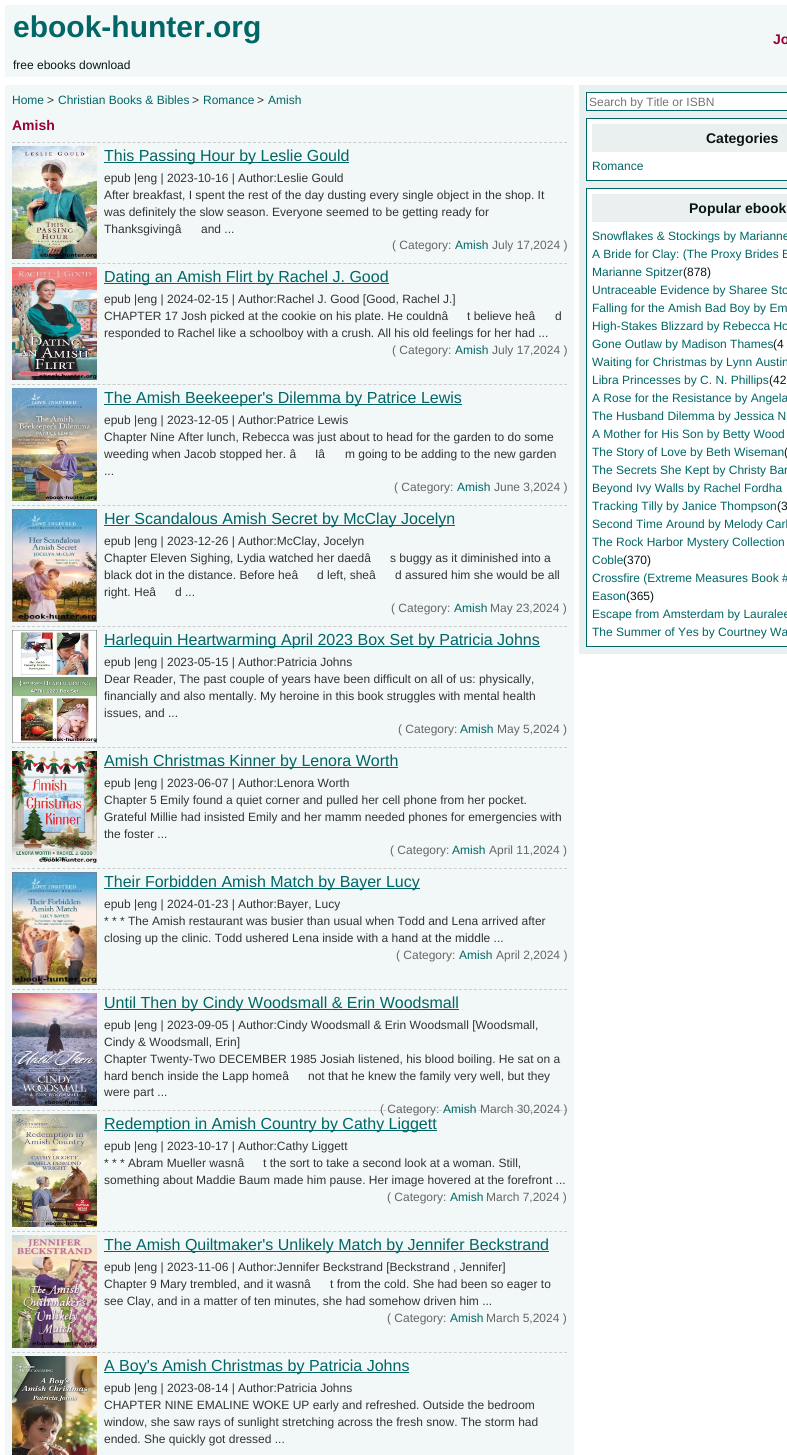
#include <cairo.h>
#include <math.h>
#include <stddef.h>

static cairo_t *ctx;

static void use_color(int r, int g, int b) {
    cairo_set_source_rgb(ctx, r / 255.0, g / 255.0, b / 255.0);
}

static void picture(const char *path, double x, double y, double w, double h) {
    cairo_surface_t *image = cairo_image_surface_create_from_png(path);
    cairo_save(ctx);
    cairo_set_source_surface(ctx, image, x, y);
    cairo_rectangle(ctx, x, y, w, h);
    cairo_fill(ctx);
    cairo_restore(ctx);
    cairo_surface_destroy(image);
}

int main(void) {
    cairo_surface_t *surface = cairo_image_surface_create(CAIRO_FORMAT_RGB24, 787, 1455);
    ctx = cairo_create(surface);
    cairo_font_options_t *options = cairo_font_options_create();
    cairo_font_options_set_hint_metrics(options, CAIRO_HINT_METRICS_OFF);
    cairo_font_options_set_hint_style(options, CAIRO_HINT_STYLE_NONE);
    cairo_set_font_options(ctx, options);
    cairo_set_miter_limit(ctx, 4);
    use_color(255, 255, 255);
    cairo_paint(ctx);
    use_color(242, 247, 247);
    cairo_rectangle(ctx, 5, 5, 782, 72);
    cairo_fill(ctx);
    cairo_select_font_face(ctx, "Liberation Sans", CAIRO_FONT_SLANT_NORMAL, CAIRO_FONT_WEIGHT_BOLD);
    cairo_set_font_size(ctx, 30);
    use_color(0, 102, 102);
    cairo_move_to(ctx, 13, 37);
    cairo_show_text(ctx, "ebook-hunter.org");
    cairo_select_font_face(ctx, "Liberation Sans", CAIRO_FONT_SLANT_NORMAL, CAIRO_FONT_WEIGHT_NORMAL);
    cairo_set_font_size(ctx, 12);
    use_color(10, 20, 20);
    cairo_move_to(ctx, 13, 69);
    cairo_show_text(ctx, "free ebooks download");
    cairo_select_font_face(ctx, "Liberation Sans", CAIRO_FONT_SLANT_NORMAL, CAIRO_FONT_WEIGHT_BOLD);
    cairo_set_font_size(ctx, 14);
    use_color(153, 0, 51);
    cairo_move_to(ctx, 773, 44);
    cairo_show_text(ctx, "Jo");
    use_color(242, 247, 247);
    cairo_rectangle(ctx, 5, 85, 569, 1370);
    cairo_fill(ctx);
    cairo_select_font_face(ctx, "Liberation Sans", CAIRO_FONT_SLANT_NORMAL, CAIRO_FONT_WEIGHT_NORMAL);
    cairo_set_font_size(ctx, 12);
    use_color(0, 102, 102);
    cairo_move_to(ctx, 12, 104);
    cairo_show_text(ctx, "Home");
    use_color(51, 51, 51);
    cairo_move_to(ctx, 47, 104);
    cairo_show_text(ctx, ">");
    use_color(0, 102, 102);
    cairo_move_to(ctx, 58, 104);
    cairo_show_text(ctx, "Christian Books & Bibles");
    use_color(51, 51, 51);
    cairo_move_to(ctx, 192, 104);
    cairo_show_text(ctx, ">");
    use_color(0, 102, 102);
    cairo_move_to(ctx, 203, 104);
    cairo_show_text(ctx, "Romance");
    use_color(51, 51, 51);
    cairo_move_to(ctx, 257, 104);
    cairo_show_text(ctx, ">");
    use_color(0, 102, 102);
    cairo_move_to(ctx, 268, 104);
    cairo_show_text(ctx, "Amish");
    cairo_select_font_face(ctx, "Liberation Sans", CAIRO_FONT_SLANT_NORMAL, CAIRO_FONT_WEIGHT_BOLD);
    cairo_set_font_size(ctx, 14);
    use_color(153, 0, 51);
    cairo_move_to(ctx, 12, 130);
    cairo_show_text(ctx, "Amish");
    cairo_new_path(ctx);
    cairo_move_to(ctx, 12, 142.5);
    cairo_line_to(ctx, 567, 142.5);
    use_color(204, 204, 204);
    cairo_set_line_width(ctx, 1);
    cairo_set_dash(ctx, (double[]){3, 2.02}, 2, 0);
    cairo_stroke(ctx);
    picture("img1.png", 12, 146, 85, 113);
    use_color(0, 102, 102);
    cairo_rectangle(ctx, 104, 162, 245, 1);
    cairo_fill(ctx);
    cairo_select_font_face(ctx, "Liberation Sans", CAIRO_FONT_SLANT_NORMAL, CAIRO_FONT_WEIGHT_NORMAL);
    cairo_set_font_size(ctx, 16);
    cairo_move_to(ctx, 104, 161);
    cairo_show_text(ctx, "This Passing Hour by Leslie Gould");
    cairo_set_font_size(ctx, 12);
    use_color(51, 51, 51);
    cairo_move_to(ctx, 104, 182);
    cairo_show_text(ctx, "epub |eng | 2023-10-16 | Author:Leslie Gould");
    cairo_move_to(ctx, 104, 199);
    cairo_show_text(ctx, "After breakfast, I spent the rest of the day dusting every single object in the shop. It");
    cairo_move_to(ctx, 104, 216);
    cairo_show_text(ctx, "was definitely the slow season. Everyone seemed to be getting ready for");
    cairo_move_to(ctx, 104, 233);
    cairo_show_text(ctx, "Thanksgivingâ");
    cairo_move_to(ctx, 201, 233);
    cairo_show_text(ctx, "and ...");
    use_color(102, 102, 102);
    cairo_move_to(ctx, 392, 249);
    cairo_show_text(ctx, "( Category:");
    use_color(0, 102, 102);
    cairo_move_to(ctx, 455, 249);
    cairo_show_text(ctx, "Amish");
    use_color(102, 102, 102);
    cairo_move_to(ctx, 492, 249);
    cairo_show_text(ctx, "July 17,2024 )");
    cairo_new_path(ctx);
    cairo_move_to(ctx, 12, 263.5);
    cairo_line_to(ctx, 567, 263.5);
    use_color(204, 204, 204);
    cairo_stroke(ctx);
    picture("img2.png", 12, 267, 85, 113);
    use_color(0, 102, 102);
    cairo_rectangle(ctx, 104, 283, 285, 1);
    cairo_fill(ctx);
    cairo_set_font_size(ctx, 16);
    cairo_move_to(ctx, 104, 282);
    cairo_show_text(ctx, "Dating an Amish Flirt by Rachel J. Good");
    cairo_set_font_size(ctx, 12);
    use_color(51, 51, 51);
    cairo_move_to(ctx, 104, 303);
    cairo_show_text(ctx, "epub |eng | 2024-02-15 | Author:Rachel J. Good [Good, Rachel J.]");
    cairo_move_to(ctx, 104, 320);
    cairo_show_text(ctx, "CHAPTER 17 Josh picked at the cookie on his plate. He couldnâ");
    cairo_move_to(ctx, 467, 320);
    cairo_show_text(ctx, "t believe heâ");
    cairo_move_to(ctx, 555, 320);
    cairo_show_text(ctx, "d");
    cairo_move_to(ctx, 104, 337);
    cairo_show_text(ctx, "responded to Rachel like a schoolboy with a crush. All his old feelings for her had ...");
    use_color(102, 102, 102);
    cairo_move_to(ctx, 392, 354);
    cairo_show_text(ctx, "( Category:");
    use_color(0, 102, 102);
    cairo_move_to(ctx, 455, 354);
    cairo_show_text(ctx, "Amish");
    use_color(102, 102, 102);
    cairo_move_to(ctx, 492, 354);
    cairo_show_text(ctx, "July 17,2024 )");
    cairo_new_path(ctx);
    cairo_move_to(ctx, 12, 384.5);
    cairo_line_to(ctx, 567, 384.5);
    use_color(204, 204, 204);
    cairo_stroke(ctx);
    picture("img3.png", 12, 388, 85, 113);
    use_color(0, 102, 102);
    cairo_rectangle(ctx, 104, 404, 358, 1);
    cairo_fill(ctx);
    cairo_set_font_size(ctx, 16);
    cairo_move_to(ctx, 104, 403);
    cairo_show_text(ctx, "The Amish Beekeeper's Dilemma by Patrice Lewis");
    cairo_set_font_size(ctx, 12);
    use_color(51, 51, 51);
    cairo_move_to(ctx, 104, 424);
    cairo_show_text(ctx, "epub |eng | 2023-12-05 | Author:Patrice Lewis");
    cairo_move_to(ctx, 104, 441);
    cairo_show_text(ctx, "Chapter Nine After lunch, Rebecca was just about to head for the garden to do some");
    cairo_move_to(ctx, 104, 458);
    cairo_show_text(ctx, "weeding when Jacob stopped her. â");
    cairo_move_to(ctx, 315, 458);
    cairo_show_text(ctx, "Iâ");
    cairo_move_to(ctx, 345, 458);
    cairo_show_text(ctx, "m going to be adding to the new garden");
    cairo_move_to(ctx, 104, 475);
    cairo_show_text(ctx, "...");
    use_color(102, 102, 102);
    cairo_move_to(ctx, 394, 491);
    cairo_show_text(ctx, "( Category:");
    use_color(0, 102, 102);
    cairo_move_to(ctx, 457, 491);
    cairo_show_text(ctx, "Amish");
    use_color(102, 102, 102);
    cairo_move_to(ctx, 494, 491);
    cairo_show_text(ctx, "June 3,2024 )");
    cairo_new_path(ctx);
    cairo_move_to(ctx, 12, 505.5);
    cairo_line_to(ctx, 567, 505.5);
    use_color(204, 204, 204);
    cairo_stroke(ctx);
    picture("img4.png", 12, 509, 85, 113);
    use_color(0, 102, 102);
    cairo_rectangle(ctx, 104, 525, 351, 1);
    cairo_fill(ctx);
    cairo_set_font_size(ctx, 16);
    cairo_move_to(ctx, 104, 524);
    cairo_show_text(ctx, "Her Scandalous Amish Secret by McClay Jocelyn");
    cairo_set_font_size(ctx, 12);
    use_color(51, 51, 51);
    cairo_move_to(ctx, 104, 545);
    cairo_show_text(ctx, "epub |eng | 2023-12-26 | Author:McClay, Jocelyn");
    cairo_move_to(ctx, 104, 562);
    cairo_show_text(ctx, "Chapter Eleven Sighing, Lydia watched her daedâ");
    cairo_move_to(ctx, 390, 562);
    cairo_show_text(ctx, "s buggy as it diminished into a");
    cairo_move_to(ctx, 104, 579);
    cairo_show_text(ctx, "black dot in the distance. Before heâ");
    cairo_move_to(ctx, 317, 579);
    cairo_show_text(ctx, "d left, sheâ");
    cairo_move_to(ctx, 395, 579);
    cairo_show_text(ctx, "d assured him she would be all");
    cairo_move_to(ctx, 104, 596);
    cairo_show_text(ctx, "right. Heâ");
    cairo_move_to(ctx, 175, 596);
    cairo_show_text(ctx, "d ...");
    use_color(102, 102, 102);
    cairo_move_to(ctx, 391, 612);
    cairo_show_text(ctx, "( Category:");
    use_color(0, 102, 102);
    cairo_move_to(ctx, 454, 612);
    cairo_show_text(ctx, "Amish");
    use_color(102, 102, 102);
    cairo_move_to(ctx, 490, 612);
    cairo_show_text(ctx, "May 23,2024 )");
    cairo_new_path(ctx);
    cairo_move_to(ctx, 12, 626.5);
    cairo_line_to(ctx, 567, 626.5);
    use_color(204, 204, 204);
    cairo_stroke(ctx);
    picture("img5.png", 12, 630, 85, 113);
    use_color(0, 102, 102);
    cairo_rectangle(ctx, 104, 646, 436, 1);
    cairo_fill(ctx);
    cairo_set_font_size(ctx, 16);
    cairo_move_to(ctx, 104, 645);
    cairo_show_text(ctx, "Harlequin Heartwarming April 2023 Box Set by Patricia Johns");
    cairo_set_font_size(ctx, 12);
    use_color(51, 51, 51);
    cairo_move_to(ctx, 104, 666);
    cairo_show_text(ctx, "epub |eng | 2023-05-15 | Author:Patricia Johns");
    cairo_move_to(ctx, 104, 683);
    cairo_show_text(ctx, "Dear Reader, The past couple of years have been difficult on all of us: physically,");
    cairo_move_to(ctx, 104, 700);
    cairo_show_text(ctx, "financially and also mentally. My heroine in this book struggles with mental health");
    cairo_move_to(ctx, 104, 717);
    cairo_show_text(ctx, "issues, and ...");
    use_color(102, 102, 102);
    cairo_move_to(ctx, 398, 733);
    cairo_show_text(ctx, "( Category:");
    use_color(0, 102, 102);
    cairo_move_to(ctx, 460, 733);
    cairo_show_text(ctx, "Amish");
    use_color(102, 102, 102);
    cairo_move_to(ctx, 497, 733);
    cairo_show_text(ctx, "May 5,2024 )");
    cairo_new_path(ctx);
    cairo_move_to(ctx, 12, 747.5);
    cairo_line_to(ctx, 567, 747.5);
    use_color(204, 204, 204);
    cairo_stroke(ctx);
    picture("img6.png", 12, 751, 85, 113);
    use_color(0, 102, 102);
    cairo_rectangle(ctx, 104, 767, 294, 1);
    cairo_fill(ctx);
    cairo_set_font_size(ctx, 16);
    cairo_move_to(ctx, 104, 766);
    cairo_show_text(ctx, "Amish Christmas Kinner by Lenora Worth");
    cairo_set_font_size(ctx, 12);
    use_color(51, 51, 51);
    cairo_move_to(ctx, 104, 787);
    cairo_show_text(ctx, "epub |eng | 2023-06-07 | Author:Lenora Worth");
    cairo_move_to(ctx, 104, 804);
    cairo_show_text(ctx, "Chapter 5 Emily found a quiet corner and pulled her cell phone from her pocket.");
    cairo_move_to(ctx, 104, 821);
    cairo_show_text(ctx, "Grateful Millie had insisted Emily and her mamm needed phones for emergencies with");
    cairo_move_to(ctx, 104, 838);
    cairo_show_text(ctx, "the foster ...");
    use_color(102, 102, 102);
    cairo_move_to(ctx, 390, 854);
    cairo_show_text(ctx, "( Category:");
    use_color(0, 102, 102);
    cairo_move_to(ctx, 452, 854);
    cairo_show_text(ctx, "Amish");
    use_color(102, 102, 102);
    cairo_move_to(ctx, 489, 854);
    cairo_show_text(ctx, "April 11,2024 )");
    cairo_new_path(ctx);
    cairo_move_to(ctx, 12, 868.5);
    cairo_line_to(ctx, 567, 868.5);
    use_color(204, 204, 204);
    cairo_stroke(ctx);
    picture("img7.png", 12, 872, 85, 113);
    use_color(0, 102, 102);
    cairo_rectangle(ctx, 104, 888, 316, 1);
    cairo_fill(ctx);
    cairo_set_font_size(ctx, 16);
    cairo_move_to(ctx, 104, 887);
    cairo_show_text(ctx, "Their Forbidden Amish Match by Bayer Lucy");
    cairo_set_font_size(ctx, 12);
    use_color(51, 51, 51);
    cairo_move_to(ctx, 104, 908);
    cairo_show_text(ctx, "epub |eng | 2024-01-23 | Author:Bayer, Lucy");
    cairo_move_to(ctx, 104, 925);
    cairo_show_text(ctx, "* * * The Amish restaurant was busier than usual when Todd and Lena arrived after");
    cairo_move_to(ctx, 104, 942);
    cairo_show_text(ctx, "closing up the clinic. Todd ushered Lena inside with a hand at the middle ...");
    use_color(102, 102, 102);
    cairo_move_to(ctx, 396, 959);
    cairo_show_text(ctx, "( Category:");
    use_color(0, 102, 102);
    cairo_move_to(ctx, 459, 959);
    cairo_show_text(ctx, "Amish");
    use_color(102, 102, 102);
    cairo_move_to(ctx, 496, 959);
    cairo_show_text(ctx, "April 2,2024 )");
    cairo_new_path(ctx);
    cairo_move_to(ctx, 12, 989.5);
    cairo_line_to(ctx, 567, 989.5);
    use_color(204, 204, 204);
    cairo_stroke(ctx);
    picture("img8.png", 12, 993, 85, 113);
    use_color(0, 102, 102);
    cairo_rectangle(ctx, 104, 1009, 355, 1);
    cairo_fill(ctx);
    cairo_set_font_size(ctx, 16);
    cairo_move_to(ctx, 104, 1008);
    cairo_show_text(ctx, "Until Then by Cindy Woodsmall & Erin Woodsmall");
    cairo_set_font_size(ctx, 12);
    use_color(51, 51, 51);
    cairo_move_to(ctx, 104, 1029);
    cairo_show_text(ctx, "epub |eng | 2023-09-05 | Author:Cindy Woodsmall & Erin Woodsmall [Woodsmall,");
    cairo_move_to(ctx, 104, 1046);
    cairo_show_text(ctx, "Cindy & Woodsmall, Erin]");
    cairo_move_to(ctx, 104, 1063);
    cairo_show_text(ctx, "Chapter Twenty-Two DECEMBER 1985 Josiah listened, his blood boiling. He sat on a");
    cairo_move_to(ctx, 104, 1080);
    cairo_show_text(ctx, "hard bench inside the Lapp homeâ");
    cairo_move_to(ctx, 308, 1080);
    cairo_show_text(ctx, "not that he knew the family very well, but they");
    cairo_move_to(ctx, 104, 1096);
    cairo_show_text(ctx, "were part ...");
    cairo_new_path(ctx);
    cairo_move_to(ctx, 12, 1110.5);
    cairo_line_to(ctx, 567, 1110.5);
    use_color(204, 204, 204);
    cairo_stroke(ctx);
    use_color(102, 102, 102);
    cairo_move_to(ctx, 380, 1113);
    cairo_show_text(ctx, "( Category:");
    use_color(0, 102, 102);
    cairo_move_to(ctx, 443, 1113);
    cairo_show_text(ctx, "Amish");
    use_color(102, 102, 102);
    cairo_move_to(ctx, 480, 1113);
    cairo_show_text(ctx, "March 30,2024 )");
    picture("img9.png", 12, 1114, 85, 113);
    use_color(0, 102, 102);
    cairo_rectangle(ctx, 104, 1130, 333, 1);
    cairo_fill(ctx);
    cairo_set_font_size(ctx, 16);
    cairo_move_to(ctx, 104, 1129);
    cairo_show_text(ctx, "Redemption in Amish Country by Cathy Liggett");
    cairo_set_font_size(ctx, 12);
    use_color(51, 51, 51);
    cairo_move_to(ctx, 104, 1150);
    cairo_show_text(ctx, "epub |eng | 2023-10-17 | Author:Cathy Liggett");
    cairo_move_to(ctx, 104, 1167);
    cairo_show_text(ctx, "* * * Abram Mueller wasnâ");
    cairo_move_to(ctx, 263, 1167);
    cairo_show_text(ctx, "t the sort to take a second look at a woman. Still,");
    cairo_move_to(ctx, 104, 1184);
    cairo_show_text(ctx, "something about Maddie Baum made him pause. Her image hovered at the forefront ...");
    use_color(102, 102, 102);
    cairo_move_to(ctx, 387, 1201);
    cairo_show_text(ctx, "( Category:");
    use_color(0, 102, 102);
    cairo_move_to(ctx, 450, 1201);
    cairo_show_text(ctx, "Amish");
    use_color(102, 102, 102);
    cairo_move_to(ctx, 486, 1201);
    cairo_show_text(ctx, "March 7,2024 )");
    cairo_new_path(ctx);
    cairo_move_to(ctx, 12, 1231.5);
    cairo_line_to(ctx, 567, 1231.5);
    use_color(204, 204, 204);
    cairo_stroke(ctx);
    picture("img10.png", 12, 1235, 85, 113);
    use_color(0, 102, 102);
    cairo_rectangle(ctx, 104, 1251, 445, 1);
    cairo_fill(ctx);
    cairo_set_font_size(ctx, 16);
    cairo_move_to(ctx, 104, 1250);
    cairo_show_text(ctx, "The Amish Quiltmaker's Unlikely Match by Jennifer Beckstrand");
    cairo_set_font_size(ctx, 12);
    use_color(51, 51, 51);
    cairo_move_to(ctx, 104, 1271);
    cairo_show_text(ctx, "epub |eng | 2023-11-06 | Author:Jennifer Beckstrand [Beckstrand , Jennifer]");
    cairo_move_to(ctx, 104, 1288);
    cairo_show_text(ctx, "Chapter 9 Mary trembled, and it wasnâ");
    cairo_move_to(ctx, 330, 1288);
    cairo_show_text(ctx, "t from the cold. She had been so eager to");
    cairo_move_to(ctx, 104, 1305);
    cairo_show_text(ctx, "see Clay, and in a matter of ten minutes, she had somehow driven him ...");
    use_color(102, 102, 102);
    cairo_move_to(ctx, 387, 1322);
    cairo_show_text(ctx, "( Category:");
    use_color(0, 102, 102);
    cairo_move_to(ctx, 450, 1322);
    cairo_show_text(ctx, "Amish");
    use_color(102, 102, 102);
    cairo_move_to(ctx, 486, 1322);
    cairo_show_text(ctx, "March 5,2024 )");
    cairo_new_path(ctx);
    cairo_move_to(ctx, 12, 1352.5);
    cairo_line_to(ctx, 567, 1352.5);
    use_color(204, 204, 204);
    cairo_stroke(ctx);
    picture("img11.png", 12, 1356, 85, 99);
    use_color(0, 102, 102);
    cairo_rectangle(ctx, 104, 1372, 305, 1);
    cairo_fill(ctx);
    cairo_set_font_size(ctx, 16);
    cairo_move_to(ctx, 104, 1371);
    cairo_show_text(ctx, "A Boy's Amish Christmas by Patricia Johns");
    cairo_set_font_size(ctx, 12);
    use_color(51, 51, 51);
    cairo_move_to(ctx, 104, 1392);
    cairo_show_text(ctx, "epub |eng | 2023-08-14 | Author:Patricia Johns");
    cairo_move_to(ctx, 104, 1409);
    cairo_show_text(ctx, "CHAPTER NINE EMALINE WOKE UP early and refreshed. Outside the bedroom");
    cairo_move_to(ctx, 104, 1426);
    cairo_show_text(ctx, "window, she saw rays of sunlight stretching across the fresh snow. The storm had");
    cairo_move_to(ctx, 104, 1443);
    cairo_show_text(ctx, "ended. She quickly got dressed ...");
    use_color(234, 240, 240);
    cairo_rectangle(ctx, 579, 85, 208, 569);
    cairo_fill(ctx);
    use_color(255, 255, 255);
    cairo_rectangle(ctx, 586.5, 92.5, 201, 18);
    cairo_fill_preserve(ctx);
    use_color(0, 102, 102);
    cairo_set_dash(ctx, NULL, 0, 0);
    cairo_stroke(ctx);
    use_color(117, 117, 117);
    cairo_move_to(ctx, 589, 106);
    cairo_show_text(ctx, "Search by Title or ISBN");
    use_color(255, 255, 255);
    cairo_rectangle(ctx, 586.5, 118.5, 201, 62);
    cairo_fill_preserve(ctx);
    use_color(0, 102, 102);
    cairo_stroke(ctx);
    use_color(234, 240, 240);
    cairo_rectangle(ctx, 592, 124, 195, 28);
    cairo_fill(ctx);
    cairo_select_font_face(ctx, "Liberation Sans", CAIRO_FONT_SLANT_NORMAL, CAIRO_FONT_WEIGHT_BOLD);
    cairo_set_font_size(ctx, 14);
    use_color(10, 20, 20);
    cairo_move_to(ctx, 706, 143);
    cairo_show_text(ctx, "Categories");
    cairo_select_font_face(ctx, "Liberation Sans", CAIRO_FONT_SLANT_NORMAL, CAIRO_FONT_WEIGHT_NORMAL);
    cairo_set_font_size(ctx, 12);
    use_color(0, 102, 102);
    cairo_move_to(ctx, 592, 170);
    cairo_show_text(ctx, "Romance");
    use_color(255, 255, 255);
    cairo_rectangle(ctx, 586.5, 188.5, 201, 458);
    cairo_fill_preserve(ctx);
    use_color(0, 102, 102);
    cairo_stroke(ctx);
    use_color(234, 240, 240);
    cairo_rectangle(ctx, 592, 194, 195, 28);
    cairo_fill(ctx);
    cairo_select_font_face(ctx, "Liberation Sans", CAIRO_FONT_SLANT_NORMAL, CAIRO_FONT_WEIGHT_BOLD);
    cairo_set_font_size(ctx, 14);
    use_color(10, 20, 20);
    cairo_move_to(ctx, 689, 213);
    cairo_show_text(ctx, "Popular ebook");
    cairo_select_font_face(ctx, "Liberation Sans", CAIRO_FONT_SLANT_NORMAL, CAIRO_FONT_WEIGHT_NORMAL);
    cairo_set_font_size(ctx, 12);
    use_color(0, 102, 102);
    cairo_move_to(ctx, 592, 240);
    cairo_show_text(ctx, "Snowflakes & Stockings by Marianne");
    cairo_move_to(ctx, 592, 258);
    cairo_show_text(ctx, "A Bride for Clay: (The Proxy Brides B");
    cairo_move_to(ctx, 592, 276);
    cairo_show_text(ctx, "Marianne Spitzer");
    use_color(10, 20, 20);
    cairo_move_to(ctx, 683, 276);
    cairo_show_text(ctx, "(878)");
    use_color(0, 102, 102);
    cairo_move_to(ctx, 592, 294);
    cairo_show_text(ctx, "Untraceable Evidence by Sharee Sto");
    cairo_move_to(ctx, 592, 312);
    cairo_show_text(ctx, "Falling for the Amish Bad Boy by Em");
    cairo_move_to(ctx, 592, 330);
    cairo_show_text(ctx, "High-Stakes Blizzard by Rebecca Ho");
    cairo_move_to(ctx, 592, 348);
    cairo_show_text(ctx, "Gone Outlaw by Madison Thames");
    use_color(10, 20, 20);
    cairo_move_to(ctx, 773, 348);
    cairo_show_text(ctx, "(4");
    use_color(0, 102, 102);
    cairo_move_to(ctx, 592, 366);
    cairo_show_text(ctx, "Waiting for Christmas by Lynn Austin");
    cairo_move_to(ctx, 592, 384);
    cairo_show_text(ctx, "Libra Princesses by C. N. Phillips");
    use_color(10, 20, 20);
    cairo_move_to(ctx, 769, 384);
    cairo_show_text(ctx, "(42");
    use_color(0, 102, 102);
    cairo_move_to(ctx, 592, 402);
    cairo_show_text(ctx, "A Rose for the Resistance by Angela");
    cairo_move_to(ctx, 592, 420);
    cairo_show_text(ctx, "The Husband Dilemma by Jessica N");
    cairo_move_to(ctx, 592, 438);
    cairo_show_text(ctx, "A Mother for His Son by Betty Wood");
    cairo_move_to(ctx, 592, 456);
    cairo_show_text(ctx, "The Story of Love by Beth Wiseman");
    use_color(10, 20, 20);
    cairo_move_to(ctx, 784, 456);
    cairo_show_text(ctx, "(");
    use_color(0, 102, 102);
    cairo_move_to(ctx, 592, 474);
    cairo_show_text(ctx, "The Secrets She Kept by Christy Bar");
    cairo_move_to(ctx, 592, 492);
    cairo_show_text(ctx, "Beyond Ivy Walls by Rachel Fordha");
    cairo_move_to(ctx, 592, 510);
    cairo_show_text(ctx, "Tracking Tilly by Janice Thompson");
    use_color(10, 20, 20);
    cairo_move_to(ctx, 777, 510);
    cairo_show_text(ctx, "(3");
    use_color(0, 102, 102);
    cairo_move_to(ctx, 592, 528);
    cairo_show_text(ctx, "Second Time Around by Melody Carl");
    cairo_move_to(ctx, 592, 546);
    cairo_show_text(ctx, "The Rock Harbor Mystery Collection");
    cairo_move_to(ctx, 592, 564);
    cairo_show_text(ctx, "Coble");
    use_color(10, 20, 20);
    cairo_move_to(ctx, 623, 564);
    cairo_show_text(ctx, "(370)");
    use_color(0, 102, 102);
    cairo_move_to(ctx, 592, 582);
    cairo_show_text(ctx, "Crossfire (Extreme Measures Book #");
    cairo_move_to(ctx, 592, 600);
    cairo_show_text(ctx, "Eason");
    use_color(10, 20, 20);
    cairo_move_to(ctx, 626, 600);
    cairo_show_text(ctx, "(365)");
    use_color(0, 102, 102);
    cairo_move_to(ctx, 592, 618);
    cairo_show_text(ctx, "Escape from Amsterdam by Lauralee");
    cairo_move_to(ctx, 592, 636);
    cairo_show_text(ctx, "The Summer of Yes by Courtney Wa");
    cairo_surface_write_to_png(surface, "result.png");
    cairo_font_options_destroy(options);
    cairo_destroy(ctx);
    cairo_surface_destroy(surface);
    return 0;
}
